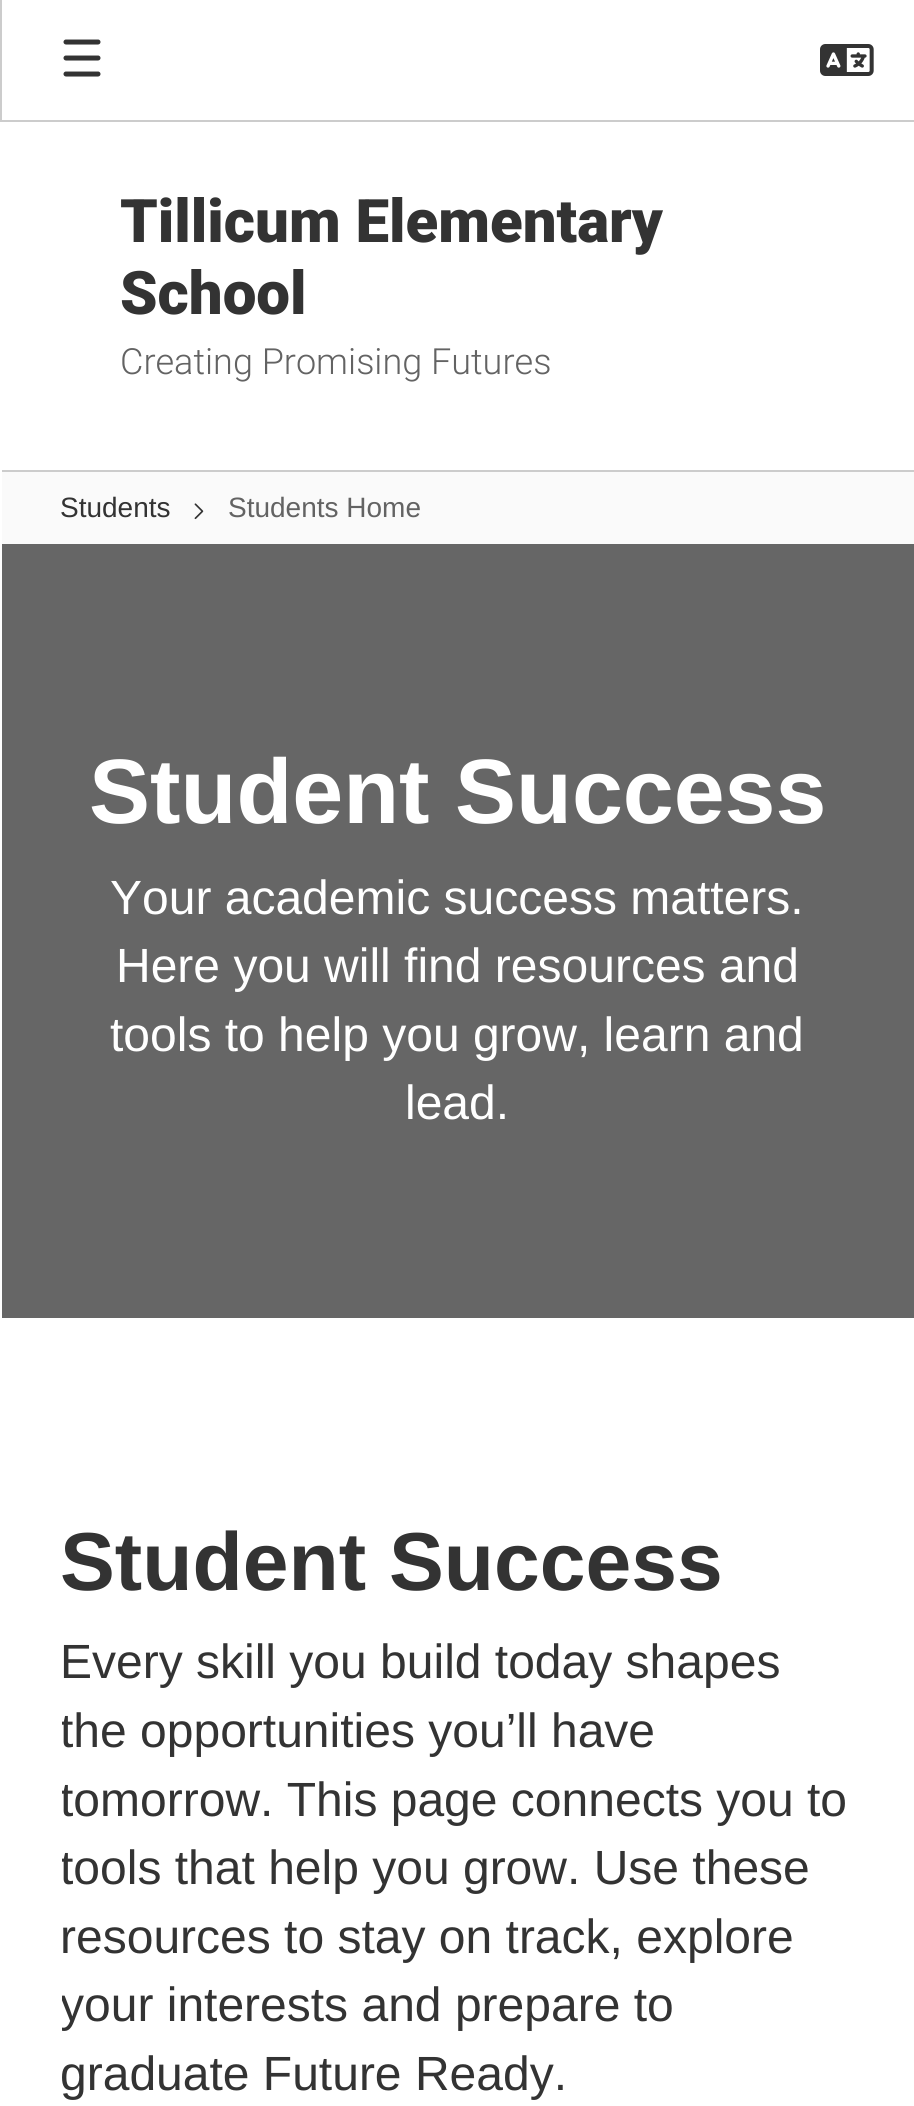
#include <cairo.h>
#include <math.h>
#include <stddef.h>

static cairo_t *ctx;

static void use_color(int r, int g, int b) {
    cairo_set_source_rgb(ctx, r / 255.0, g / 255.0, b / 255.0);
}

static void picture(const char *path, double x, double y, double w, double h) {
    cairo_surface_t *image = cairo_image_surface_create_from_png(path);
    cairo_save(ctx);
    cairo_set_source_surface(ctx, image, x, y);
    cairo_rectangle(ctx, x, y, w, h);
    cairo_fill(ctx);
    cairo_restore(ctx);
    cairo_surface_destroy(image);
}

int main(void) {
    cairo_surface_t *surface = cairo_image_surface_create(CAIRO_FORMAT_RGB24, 914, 2106);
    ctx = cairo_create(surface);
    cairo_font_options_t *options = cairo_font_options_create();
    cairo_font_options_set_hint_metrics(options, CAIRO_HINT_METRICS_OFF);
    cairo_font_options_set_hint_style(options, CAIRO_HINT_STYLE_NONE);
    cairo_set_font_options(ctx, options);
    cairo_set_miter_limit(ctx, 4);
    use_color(255, 255, 255);
    cairo_paint(ctx);
    use_color(204, 204, 204);
    cairo_rectangle(ctx, 0, 120, 914, 2);
    cairo_fill(ctx);
    cairo_rectangle(ctx, 0, 0, 2, 120);
    cairo_fill(ctx);
    cairo_new_path(ctx);
    cairo_move_to(ctx, 66, 42);
    cairo_line_to(ctx, 98, 42);
    cairo_move_to(ctx, 66, 58);
    cairo_line_to(ctx, 98, 58);
    cairo_move_to(ctx, 66, 74);
    cairo_line_to(ctx, 98, 74);
    use_color(51, 51, 51);
    cairo_set_line_width(ctx, 5);
    cairo_set_line_cap(ctx, CAIRO_LINE_CAP_ROUND);
    cairo_stroke(ctx);
    picture("img1.png", 820, 44, 54, 32);
    cairo_select_font_face(ctx, "Roboto Black", CAIRO_FONT_SLANT_NORMAL, CAIRO_FONT_WEIGHT_NORMAL);
    cairo_set_font_size(ctx, 60);
    cairo_move_to(ctx, 120, 242);
    cairo_show_text(ctx, "Tillicum Elementary");
    cairo_move_to(ctx, 120, 314);
    cairo_show_text(ctx, "School");
    cairo_select_font_face(ctx, "Roboto Light", CAIRO_FONT_SLANT_NORMAL, CAIRO_FONT_WEIGHT_NORMAL);
    cairo_set_font_size(ctx, 36);
    use_color(99, 99, 99);
    cairo_move_to(ctx, 120, 374);
    cairo_show_text(ctx, "Creating Promising Futures");
    use_color(204, 204, 204);
    cairo_rectangle(ctx, 2, 470, 912, 2);
    cairo_fill(ctx);
    use_color(250, 250, 250);
    cairo_rectangle(ctx, 2, 472, 912, 72);
    cairo_fill(ctx);
    cairo_select_font_face(ctx, "Liberation Sans", CAIRO_FONT_SLANT_NORMAL, CAIRO_FONT_WEIGHT_NORMAL);
    cairo_set_font_size(ctx, 28);
    use_color(51, 51, 51);
    cairo_move_to(ctx, 60, 517);
    cairo_show_text(ctx, "Students");
    picture("img2.png", 194, 503, 10, 17);
    use_color(99, 99, 99);
    cairo_move_to(ctx, 228, 517);
    cairo_show_text(ctx, "Students Home");
    use_color(102, 102, 102);
    cairo_rectangle(ctx, 2, 544, 912, 774);
    cairo_fill(ctx);
    cairo_select_font_face(ctx, "Liberation Sans", CAIRO_FONT_SLANT_NORMAL, CAIRO_FONT_WEIGHT_BOLD);
    cairo_set_font_size(ctx, 91.5);
    use_color(255, 255, 255);
    cairo_move_to(ctx, 89, 823);
    cairo_show_text(ctx, "Student Success");
    cairo_select_font_face(ctx, "Liberation Sans", CAIRO_FONT_SLANT_NORMAL, CAIRO_FONT_WEIGHT_NORMAL);
    cairo_set_font_size(ctx, 48);
    cairo_move_to(ctx, 110, 914);
    cairo_show_text(ctx, "Your academic success matters.");
    cairo_move_to(ctx, 116, 982);
    cairo_show_text(ctx, "Here you will find resources and");
    cairo_move_to(ctx, 110, 1051);
    cairo_show_text(ctx, "tools to help you grow, learn and");
    cairo_move_to(ctx, 405, 1119);
    cairo_show_text(ctx, "lead.");
    cairo_select_font_face(ctx, "Liberation Sans", CAIRO_FONT_SLANT_NORMAL, CAIRO_FONT_WEIGHT_BOLD);
    cairo_set_font_size(ctx, 82.25);
    use_color(51, 51, 51);
    cairo_move_to(ctx, 60, 1590);
    cairo_show_text(ctx, "Student Success");
    cairo_select_font_face(ctx, "Liberation Sans", CAIRO_FONT_SLANT_NORMAL, CAIRO_FONT_WEIGHT_NORMAL);
    cairo_set_font_size(ctx, 48);
    cairo_move_to(ctx, 60, 1678);
    cairo_show_text(ctx, "Every skill you build today shapes");
    cairo_save(ctx);
    cairo_rectangle(ctx, 62, 1478, 794, 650);
    cairo_clip(ctx);
    cairo_move_to(ctx, 60, 1747);
    cairo_show_text(ctx, "the opportunities you’ll have");
    cairo_move_to(ctx, 60, 1816);
    cairo_show_text(ctx, "tomorrow. This page connects you to");
    cairo_move_to(ctx, 60, 1884);
    cairo_show_text(ctx, "tools that help you grow. Use these");
    cairo_restore(ctx);
    cairo_move_to(ctx, 60, 1953);
    cairo_show_text(ctx, "resources to stay on track, explore");
    cairo_save(ctx);
    cairo_rectangle(ctx, 62, 1478, 794, 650);
    cairo_clip(ctx);
    cairo_move_to(ctx, 60, 2021);
    cairo_show_text(ctx, "your interests and prepare to");
    cairo_restore(ctx);
    cairo_move_to(ctx, 60, 2090);
    cairo_show_text(ctx, "graduate Future Ready.");
    cairo_surface_write_to_png(surface, "result.png");
    cairo_font_options_destroy(options);
    cairo_destroy(ctx);
    cairo_surface_destroy(surface);
    return 0;
}
